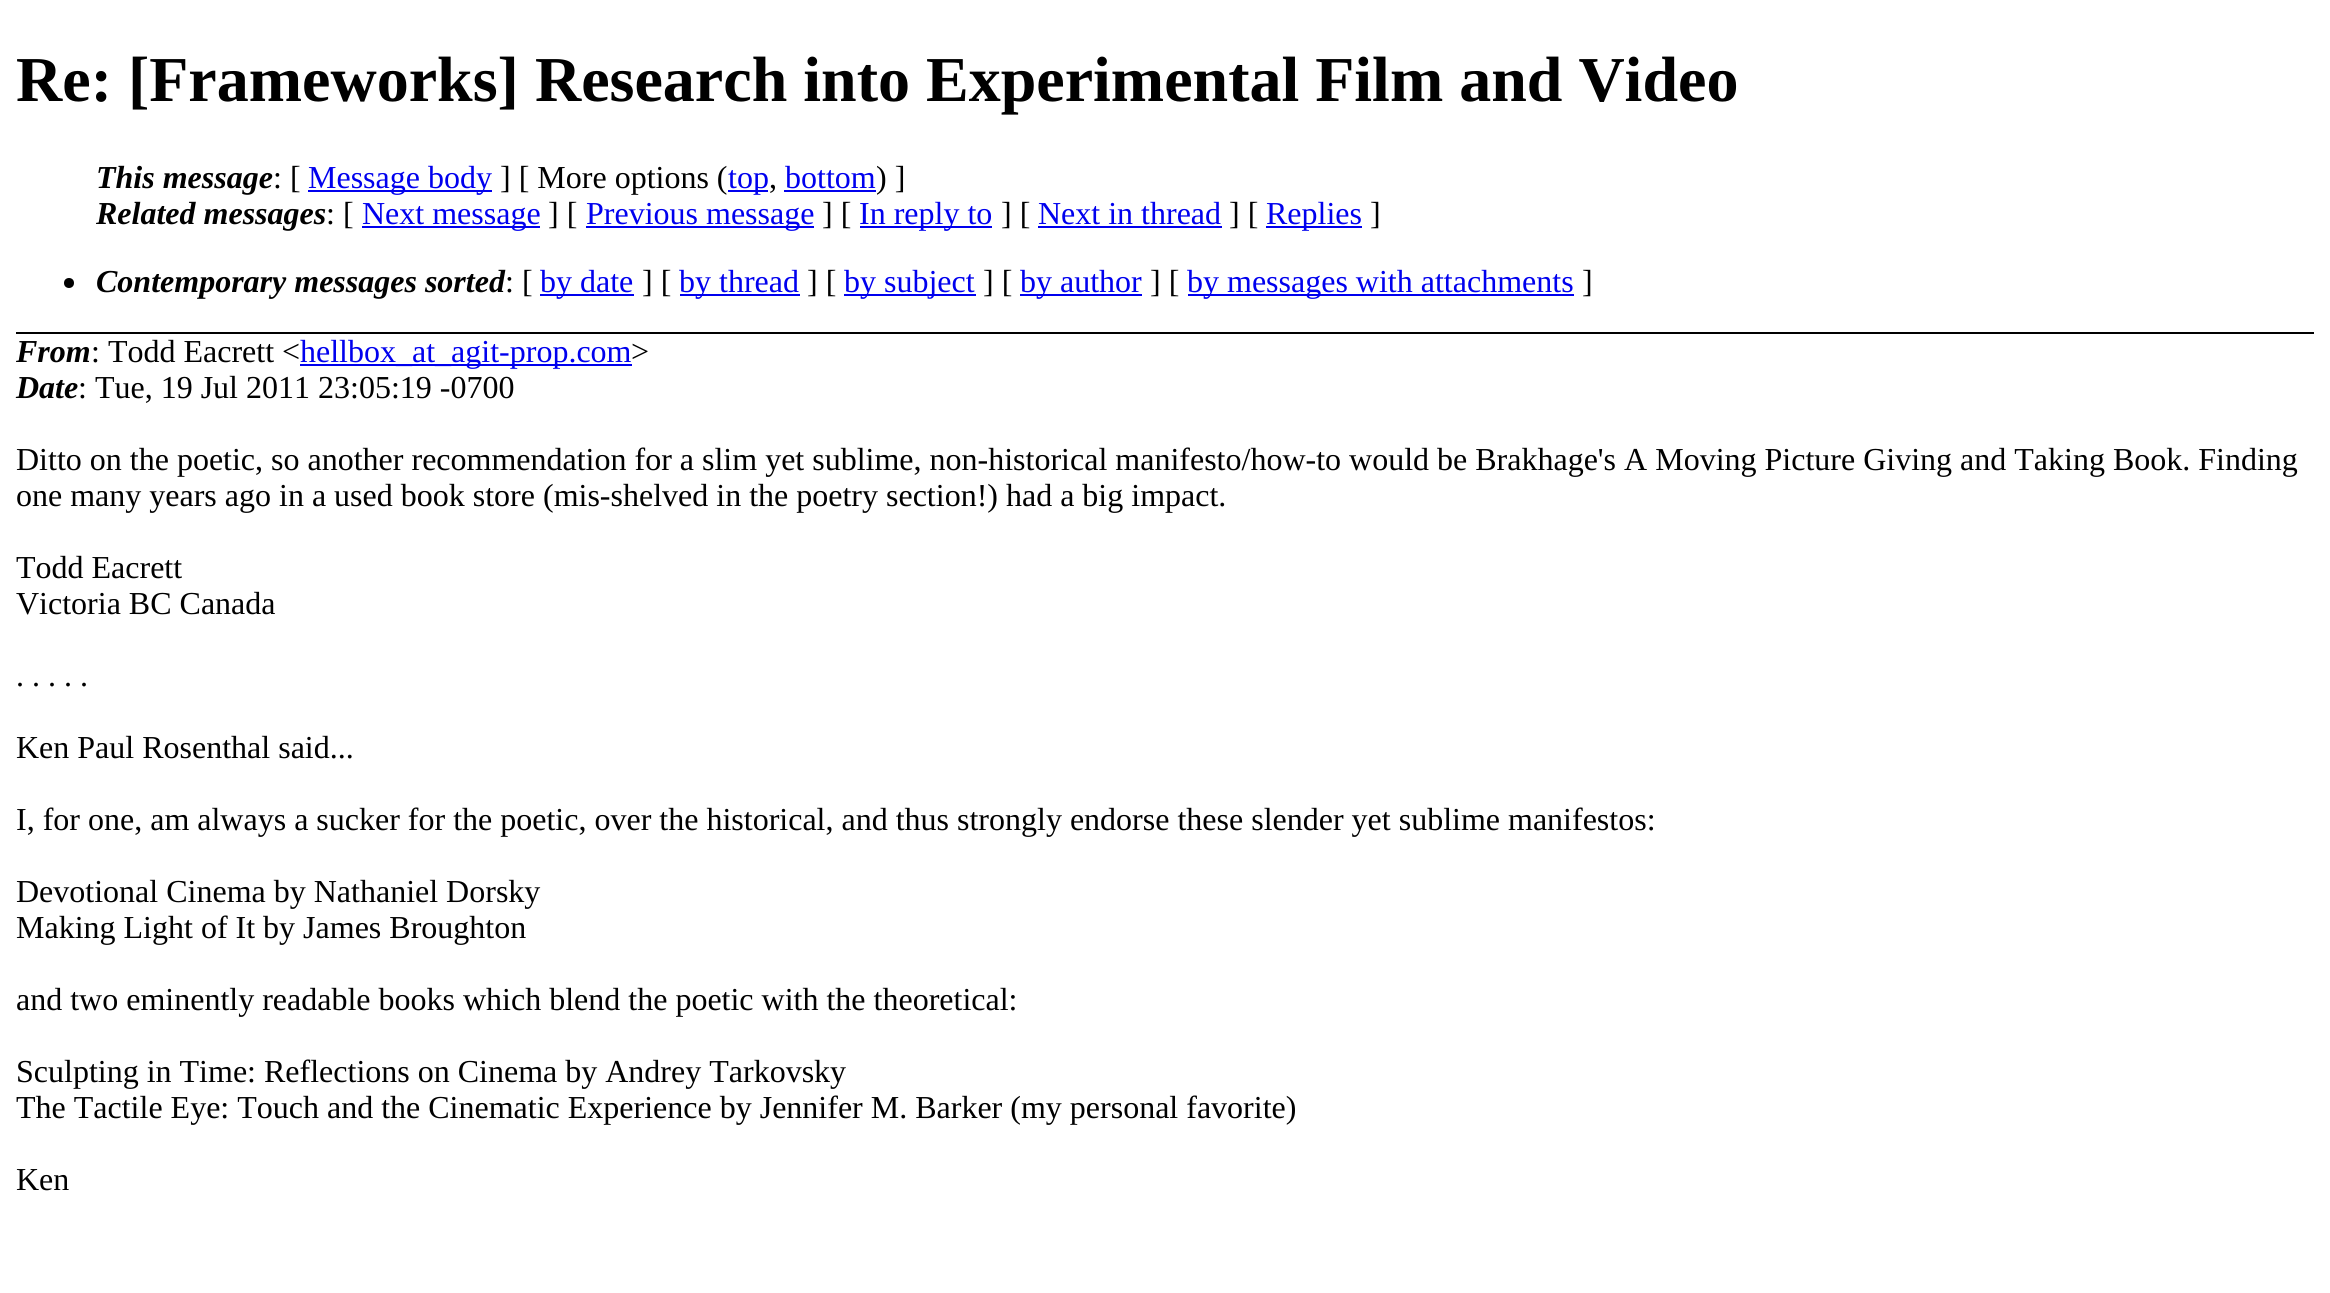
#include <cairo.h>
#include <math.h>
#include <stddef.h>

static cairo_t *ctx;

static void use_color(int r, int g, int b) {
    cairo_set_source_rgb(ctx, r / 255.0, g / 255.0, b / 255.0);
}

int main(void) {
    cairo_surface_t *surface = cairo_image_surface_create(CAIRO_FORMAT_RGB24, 2330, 1293);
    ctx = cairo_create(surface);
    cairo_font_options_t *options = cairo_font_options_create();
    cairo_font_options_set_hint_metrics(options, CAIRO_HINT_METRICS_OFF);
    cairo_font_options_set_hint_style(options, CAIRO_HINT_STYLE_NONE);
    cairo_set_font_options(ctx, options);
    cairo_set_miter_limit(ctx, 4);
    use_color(255, 255, 255);
    cairo_paint(ctx);
    use_color(0, 0, 0);
    cairo_rectangle(ctx, 16, 332, 2298, 2);
    cairo_fill(ctx);
    cairo_select_font_face(ctx, "Liberation Serif", CAIRO_FONT_SLANT_NORMAL, CAIRO_FONT_WEIGHT_BOLD);
    cairo_set_font_size(ctx, 64);
    cairo_move_to(ctx, 16, 101);
    cairo_show_text(ctx, "Re: [Frameworks] Research into Experimental Film and Video");
    cairo_select_font_face(ctx, "Liberation Serif", CAIRO_FONT_SLANT_ITALIC, CAIRO_FONT_WEIGHT_BOLD);
    cairo_set_font_size(ctx, 32);
    cairo_move_to(ctx, 96, 188);
    cairo_show_text(ctx, "This message");
    cairo_select_font_face(ctx, "Liberation Serif", CAIRO_FONT_SLANT_NORMAL, CAIRO_FONT_WEIGHT_NORMAL);
    cairo_move_to(ctx, 273, 188);
    cairo_show_text(ctx, ": [");
    use_color(0, 0, 238);
    cairo_rectangle(ctx, 308, 190, 184, 2);
    cairo_fill(ctx);
    cairo_move_to(ctx, 308, 188);
    cairo_show_text(ctx, "Message body");
    use_color(0, 0, 0);
    cairo_move_to(ctx, 500, 188);
    cairo_show_text(ctx, "] [ More options (");
    use_color(0, 0, 238);
    cairo_rectangle(ctx, 728, 190, 40, 2);
    cairo_fill(ctx);
    cairo_move_to(ctx, 728, 188);
    cairo_show_text(ctx, "top");
    use_color(0, 0, 0);
    cairo_move_to(ctx, 769, 188);
    cairo_show_text(ctx, ",");
    use_color(0, 0, 238);
    cairo_move_to(ctx, 785, 188);
    cairo_show_text(ctx, "bottom");
    cairo_rectangle(ctx, 784, 190, 92, 2);
    cairo_fill(ctx);
    use_color(0, 0, 0);
    cairo_move_to(ctx, 876, 188);
    cairo_show_text(ctx, ") ]");
    cairo_select_font_face(ctx, "Liberation Serif", CAIRO_FONT_SLANT_ITALIC, CAIRO_FONT_WEIGHT_BOLD);
    cairo_move_to(ctx, 96, 224);
    cairo_show_text(ctx, "Related messages");
    cairo_select_font_face(ctx, "Liberation Serif", CAIRO_FONT_SLANT_NORMAL, CAIRO_FONT_WEIGHT_NORMAL);
    cairo_move_to(ctx, 326, 224);
    cairo_show_text(ctx, ": [");
    use_color(0, 0, 238);
    cairo_rectangle(ctx, 362, 226, 178, 2);
    cairo_fill(ctx);
    cairo_move_to(ctx, 362, 224);
    cairo_show_text(ctx, "Next message");
    use_color(0, 0, 0);
    cairo_move_to(ctx, 548, 224);
    cairo_show_text(ctx, "] [");
    use_color(0, 0, 238);
    cairo_rectangle(ctx, 586, 226, 228, 2);
    cairo_fill(ctx);
    cairo_move_to(ctx, 586, 224);
    cairo_show_text(ctx, "Previous message");
    use_color(0, 0, 0);
    cairo_move_to(ctx, 822, 224);
    cairo_show_text(ctx, "] [");
    use_color(0, 0, 238);
    cairo_rectangle(ctx, 860, 226, 132, 2);
    cairo_fill(ctx);
    cairo_move_to(ctx, 859, 224);
    cairo_show_text(ctx, "In reply to");
    use_color(0, 0, 0);
    cairo_move_to(ctx, 1001, 224);
    cairo_show_text(ctx, "] [");
    use_color(0, 0, 238);
    cairo_move_to(ctx, 1038, 224);
    cairo_show_text(ctx, "Next in thread");
    cairo_rectangle(ctx, 1038, 226, 184, 2);
    cairo_fill(ctx);
    use_color(0, 0, 0);
    cairo_move_to(ctx, 1229, 224);
    cairo_show_text(ctx, "] [");
    use_color(0, 0, 238);
    cairo_rectangle(ctx, 1266, 226, 96, 2);
    cairo_fill(ctx);
    cairo_move_to(ctx, 1266, 224);
    cairo_show_text(ctx, "Replies");
    use_color(0, 0, 0);
    cairo_move_to(ctx, 1370, 224);
    cairo_show_text(ctx, "]");
    cairo_new_path(ctx);
    cairo_arc(ctx, 69, 283, 5, 0, 2 * M_PI);
    cairo_fill(ctx);
    cairo_select_font_face(ctx, "Liberation Serif", CAIRO_FONT_SLANT_ITALIC, CAIRO_FONT_WEIGHT_BOLD);
    cairo_move_to(ctx, 96, 292);
    cairo_show_text(ctx, "Contemporary messages sorted");
    cairo_select_font_face(ctx, "Liberation Serif", CAIRO_FONT_SLANT_NORMAL, CAIRO_FONT_WEIGHT_NORMAL);
    cairo_move_to(ctx, 505, 292);
    cairo_show_text(ctx, ": [");
    use_color(0, 0, 238);
    cairo_rectangle(ctx, 540, 294, 94, 2);
    cairo_fill(ctx);
    cairo_move_to(ctx, 540, 292);
    cairo_show_text(ctx, "by date");
    use_color(0, 0, 0);
    cairo_move_to(ctx, 642, 292);
    cairo_show_text(ctx, "] [");
    use_color(0, 0, 238);
    cairo_rectangle(ctx, 680, 294, 120, 2);
    cairo_fill(ctx);
    cairo_move_to(ctx, 679, 292);
    cairo_show_text(ctx, "by thread");
    use_color(0, 0, 0);
    cairo_move_to(ctx, 807, 292);
    cairo_show_text(ctx, "] [");
    use_color(0, 0, 238);
    cairo_rectangle(ctx, 844, 294, 132, 2);
    cairo_fill(ctx);
    cairo_move_to(ctx, 844, 292);
    cairo_show_text(ctx, "by subject");
    use_color(0, 0, 0);
    cairo_move_to(ctx, 983, 292);
    cairo_show_text(ctx, "] [");
    use_color(0, 0, 238);
    cairo_rectangle(ctx, 1020, 294, 122, 2);
    cairo_fill(ctx);
    cairo_move_to(ctx, 1020, 292);
    cairo_show_text(ctx, "by author");
    use_color(0, 0, 0);
    cairo_move_to(ctx, 1150, 292);
    cairo_show_text(ctx, "] [");
    use_color(0, 0, 238);
    cairo_rectangle(ctx, 1188, 294, 386, 2);
    cairo_fill(ctx);
    cairo_move_to(ctx, 1187, 292);
    cairo_show_text(ctx, "by messages with attachments");
    use_color(0, 0, 0);
    cairo_move_to(ctx, 1582, 292);
    cairo_show_text(ctx, "]");
    cairo_select_font_face(ctx, "Liberation Serif", CAIRO_FONT_SLANT_ITALIC, CAIRO_FONT_WEIGHT_BOLD);
    cairo_move_to(ctx, 16, 362);
    cairo_show_text(ctx, "From");
    cairo_select_font_face(ctx, "Liberation Serif", CAIRO_FONT_SLANT_NORMAL, CAIRO_FONT_WEIGHT_NORMAL);
    cairo_move_to(ctx, 91, 362);
    cairo_show_text(ctx, ": Todd Eacrett <");
    use_color(0, 0, 238);
    cairo_rectangle(ctx, 300, 364, 332, 2);
    cairo_fill(ctx);
    cairo_move_to(ctx, 300, 362);
    cairo_show_text(ctx, "hellbox_at_agit-prop.com");
    use_color(0, 0, 0);
    cairo_move_to(ctx, 631, 362);
    cairo_show_text(ctx, ">");
    cairo_select_font_face(ctx, "Liberation Serif", CAIRO_FONT_SLANT_ITALIC, CAIRO_FONT_WEIGHT_BOLD);
    cairo_move_to(ctx, 16, 398);
    cairo_show_text(ctx, "Date");
    cairo_select_font_face(ctx, "Liberation Serif", CAIRO_FONT_SLANT_NORMAL, CAIRO_FONT_WEIGHT_NORMAL);
    cairo_move_to(ctx, 78, 398);
    cairo_show_text(ctx, ": Tue, 19 Jul 2011 23:05:19 -0700");
    cairo_move_to(ctx, 16, 470);
    cairo_show_text(ctx, "Ditto on the poetic, so another recommendation for a slim yet sublime, non-historical manifesto/how-to would be Brakhage's A Moving Picture Giving and Taking Book. Finding");
    cairo_move_to(ctx, 16, 506);
    cairo_show_text(ctx, "one many years ago in a used book store (mis-shelved in the poetry section!) had a big impact.");
    cairo_move_to(ctx, 16, 578);
    cairo_show_text(ctx, "Todd Eacrett");
    cairo_move_to(ctx, 16, 614);
    cairo_show_text(ctx, "Victoria BC Canada");
    cairo_move_to(ctx, 16, 686);
    cairo_show_text(ctx, ". . . . .");
    cairo_move_to(ctx, 16, 758);
    cairo_show_text(ctx, "Ken Paul Rosenthal said...");
    cairo_move_to(ctx, 16, 830);
    cairo_show_text(ctx, "I, for one, am always a sucker for the poetic, over the historical, and thus strongly endorse these slender yet sublime manifestos:");
    cairo_move_to(ctx, 16, 902);
    cairo_show_text(ctx, "Devotional Cinema by Nathaniel Dorsky");
    cairo_move_to(ctx, 16, 938);
    cairo_show_text(ctx, "Making Light of It by James Broughton");
    cairo_move_to(ctx, 16, 1010);
    cairo_show_text(ctx, "and two eminently readable books which blend the poetic with the theoretical:");
    cairo_move_to(ctx, 16, 1082);
    cairo_show_text(ctx, "Sculpting in Time: Reflections on Cinema by Andrey Tarkovsky");
    cairo_move_to(ctx, 16, 1118);
    cairo_show_text(ctx, "The Tactile Eye: Touch and the Cinematic Experience by Jennifer M. Barker (my personal favorite)");
    cairo_move_to(ctx, 16, 1190);
    cairo_show_text(ctx, "Ken");
    cairo_surface_write_to_png(surface, "result.png");
    cairo_font_options_destroy(options);
    cairo_destroy(ctx);
    cairo_surface_destroy(surface);
    return 0;
}
